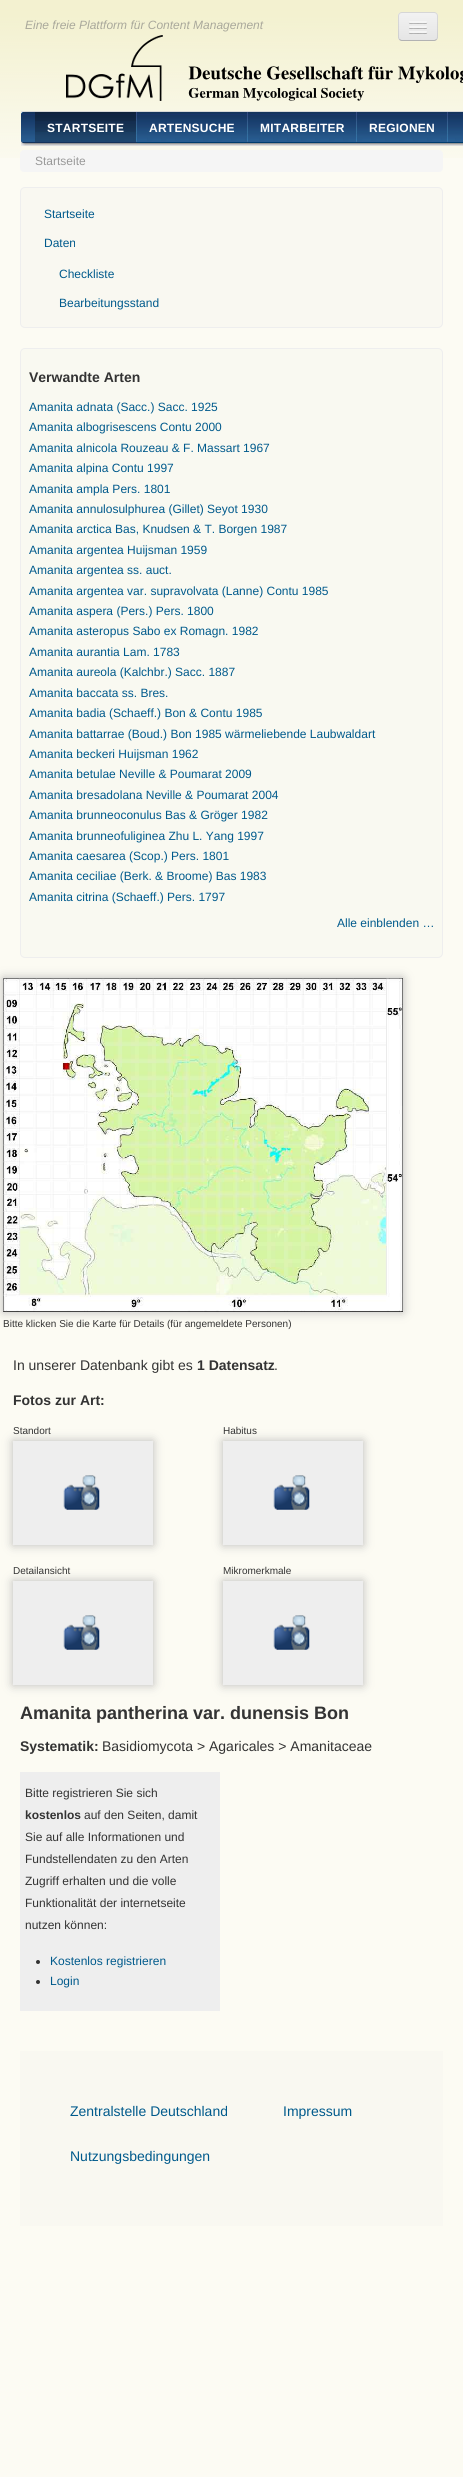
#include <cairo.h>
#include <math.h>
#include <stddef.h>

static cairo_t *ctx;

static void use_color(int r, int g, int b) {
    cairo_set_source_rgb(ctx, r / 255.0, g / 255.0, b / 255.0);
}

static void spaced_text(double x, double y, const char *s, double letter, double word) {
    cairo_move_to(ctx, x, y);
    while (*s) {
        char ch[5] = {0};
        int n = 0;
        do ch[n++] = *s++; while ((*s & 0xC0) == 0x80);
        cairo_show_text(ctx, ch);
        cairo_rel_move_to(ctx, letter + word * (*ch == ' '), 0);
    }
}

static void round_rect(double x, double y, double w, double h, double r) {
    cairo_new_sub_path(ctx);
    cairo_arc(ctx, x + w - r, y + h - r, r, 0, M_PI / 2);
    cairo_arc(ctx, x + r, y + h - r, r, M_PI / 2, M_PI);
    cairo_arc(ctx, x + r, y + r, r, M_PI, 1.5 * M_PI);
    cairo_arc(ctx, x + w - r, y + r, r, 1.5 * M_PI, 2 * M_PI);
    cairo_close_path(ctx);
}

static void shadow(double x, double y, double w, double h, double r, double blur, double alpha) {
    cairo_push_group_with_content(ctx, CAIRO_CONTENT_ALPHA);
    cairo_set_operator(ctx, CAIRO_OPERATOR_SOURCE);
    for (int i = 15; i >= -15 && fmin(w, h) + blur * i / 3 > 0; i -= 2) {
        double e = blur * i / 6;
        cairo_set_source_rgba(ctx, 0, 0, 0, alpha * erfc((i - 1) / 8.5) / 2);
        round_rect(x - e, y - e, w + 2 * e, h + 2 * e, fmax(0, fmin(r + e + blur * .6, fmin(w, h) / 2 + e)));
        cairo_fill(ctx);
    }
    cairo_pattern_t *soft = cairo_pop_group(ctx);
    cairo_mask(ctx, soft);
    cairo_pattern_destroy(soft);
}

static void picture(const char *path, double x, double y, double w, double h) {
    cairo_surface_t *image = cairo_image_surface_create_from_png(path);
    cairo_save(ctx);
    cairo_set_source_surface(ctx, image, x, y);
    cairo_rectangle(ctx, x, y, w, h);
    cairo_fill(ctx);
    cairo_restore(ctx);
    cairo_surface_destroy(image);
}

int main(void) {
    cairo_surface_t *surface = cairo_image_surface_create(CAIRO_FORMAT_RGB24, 463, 2477);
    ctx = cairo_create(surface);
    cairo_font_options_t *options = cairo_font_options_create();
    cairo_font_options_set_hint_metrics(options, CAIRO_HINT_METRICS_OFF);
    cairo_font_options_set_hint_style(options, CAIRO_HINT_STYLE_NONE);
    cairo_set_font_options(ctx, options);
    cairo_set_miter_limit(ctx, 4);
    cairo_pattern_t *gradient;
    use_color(252, 251, 243);
    cairo_paint(ctx);
    picture("img1.png", 0, 0, 463, 158);
    cairo_select_font_face(ctx, "Liberation Sans", CAIRO_FONT_SLANT_ITALIC, CAIRO_FONT_WEIGHT_NORMAL);
    cairo_set_font_size(ctx, 12);
    use_color(169, 168, 155);
    cairo_move_to(ctx, 25, 29);
    cairo_show_text(ctx, "Eine freie Plattform für Content Management");
    use_color(246, 243, 217);
    cairo_new_path(ctx);
    cairo_move_to(ctx, 398, 37);
    cairo_curve_to(ctx, 398, 43, 403, 42, 407, 42);
    cairo_line_to(ctx, 429, 42);
    cairo_curve_to(ctx, 433, 42, 438, 43, 438, 37);
    cairo_curve_to(ctx, 438, 39, 436, 41, 434, 41);
    cairo_line_to(ctx, 402, 41);
    cairo_curve_to(ctx, 400, 41, 398, 39, 398, 37);
    cairo_close_path(ctx);
    cairo_fill(ctx);
    use_color(237, 237, 237);
    round_rect(398, 12, 40, 29, 4);
    cairo_fill(ctx);
    cairo_save(ctx);
    round_rect(398, 12, 40, 29, 4);
    cairo_clip(ctx);
    gradient = cairo_pattern_create_linear(418, 13, 418, 40);
    cairo_pattern_add_color_stop_rgba(gradient, 0, 0.949, 0.949, 0.949, 1);
    cairo_pattern_add_color_stop_rgba(gradient, 1, 0.898, 0.898, 0.898, 1);
    cairo_set_source(ctx, gradient);
    cairo_pattern_destroy(gradient);
    cairo_rectangle(ctx, 398, 13, 40, 27);
    cairo_fill(ctx);
    cairo_restore(ctx);
    cairo_new_path(ctx);
    cairo_move_to(ctx, 436.5, 39.5);
    cairo_curve_to(ctx, 436, 40, 435, 40.5, 434, 40.5);
    cairo_line_to(ctx, 402, 40.5);
    cairo_curve_to(ctx, 401, 40.5, 400, 40, 399.5, 39.5);
    cairo_set_source_rgba(ctx, 0, 0, 0, 0.25);
    cairo_set_line_width(ctx, 1);
    cairo_stroke(ctx);
    cairo_new_path(ctx);
    cairo_move_to(ctx, 399.5, 39.5);
    cairo_curve_to(ctx, 399, 39, 398.5, 38, 398.5, 37);
    cairo_line_to(ctx, 398.5, 16);
    cairo_curve_to(ctx, 398.5, 15, 399, 14, 399.5, 13.5);
    cairo_curve_to(ctx, 400, 13, 401, 12.5, 402, 12.5);
    cairo_line_to(ctx, 434, 12.5);
    cairo_curve_to(ctx, 435, 12.5, 436, 13, 436.5, 13.5);
    cairo_curve_to(ctx, 437, 14, 437.5, 15, 437.5, 16);
    cairo_line_to(ctx, 437.5, 37);
    cairo_curve_to(ctx, 437.5, 38, 437, 39, 436.5, 39.5);
    cairo_set_source_rgba(ctx, 0, 0, 0, 0.1);
    cairo_stroke(ctx);
    use_color(178, 178, 178);
    cairo_new_path(ctx);
    cairo_move_to(ctx, 409, 22.5);
    cairo_curve_to(ctx, 408, 24.5, 412.5, 24, 412.5, 24);
    cairo_line_to(ctx, 423.5, 24);
    cairo_curve_to(ctx, 423.5, 24, 428, 24.5, 427, 22.5);
    cairo_curve_to(ctx, 426, 23.5, 419.5, 23, 418, 23);
    cairo_curve_to(ctx, 416.5, 23, 410, 23.5, 409, 22.5);
    cairo_close_path(ctx);
    cairo_fill(ctx);
    use_color(245, 245, 245);
    round_rect(409, 21, 18, 2, 1);
    cairo_fill(ctx);
    use_color(176, 176, 176);
    cairo_new_path(ctx);
    cairo_move_to(ctx, 409, 27.5);
    cairo_curve_to(ctx, 408, 29.5, 412.5, 29, 412.5, 29);
    cairo_line_to(ctx, 423.5, 29);
    cairo_curve_to(ctx, 423.5, 29, 428, 29.5, 427, 27.5);
    cairo_curve_to(ctx, 426, 28.5, 419.5, 28, 418, 28);
    cairo_curve_to(ctx, 416.5, 28, 410, 28.5, 409, 27.5);
    cairo_close_path(ctx);
    cairo_fill(ctx);
    use_color(245, 245, 245);
    round_rect(409, 26, 18, 2, 1);
    cairo_fill(ctx);
    use_color(174, 174, 174);
    cairo_new_path(ctx);
    cairo_move_to(ctx, 409, 32.5);
    cairo_curve_to(ctx, 408, 34.5, 412.5, 34, 412.5, 34);
    cairo_line_to(ctx, 423.5, 34);
    cairo_curve_to(ctx, 423.5, 34, 428, 34.5, 427, 32.5);
    cairo_curve_to(ctx, 426, 33.5, 419.5, 33, 418, 33);
    cairo_curve_to(ctx, 416.5, 33, 410, 33.5, 409, 32.5);
    cairo_close_path(ctx);
    cairo_fill(ctx);
    use_color(245, 245, 245);
    round_rect(409, 31, 18, 2, 1);
    cairo_fill(ctx);
    picture("img2.png", 66, 35, 397, 66);
    picture("img3.png", 35, 111, 428, 35);
    picture("img4.png", 21, 111, 14, 35);
    picture("img5.png", 136, 112, 1, 31);
    picture("img6.png", 35, 112, 101, 31);
    cairo_select_font_face(ctx, "Liberation Sans", CAIRO_FONT_SLANT_NORMAL, CAIRO_FONT_WEIGHT_BOLD);
    use_color(255, 255, 255);
    spaced_text(47, 132, "STARTSEITE", 0.25, 0);
    picture("img5.png", 247, 112, 1, 31);
    spaced_text(149, 132, "ARTENSUCHE", 0.25, 0);
    picture("img5.png", 356, 112, 1, 31);
    spaced_text(260, 132, "MITARBEITER", 0.25, 0);
    picture("img5.png", 447, 112, 1, 31);
    spaced_text(369, 132, "REGIONEN", 0.25, 0);
    use_color(245, 245, 245);
    round_rect(20, 150, 423, 22, 4);
    cairo_fill(ctx);
    cairo_select_font_face(ctx, "Liberation Sans", CAIRO_FONT_SLANT_NORMAL, CAIRO_FONT_WEIGHT_NORMAL);
    use_color(153, 153, 153);
    cairo_move_to(ctx, 35, 165);
    cairo_show_text(ctx, "Startseite");
    use_color(249, 248, 241);
    round_rect(20.5, 187.5, 422, 140, 4.5);
    cairo_fill_preserve(ctx);
    use_color(238, 238, 238);
    cairo_stroke(ctx);
    use_color(0, 90, 140);
    cairo_move_to(ctx, 44, 218);
    cairo_show_text(ctx, "Startseite");
    cairo_move_to(ctx, 44, 247);
    cairo_show_text(ctx, "Daten");
    cairo_move_to(ctx, 59, 278);
    cairo_show_text(ctx, "Checkliste");
    cairo_move_to(ctx, 59, 307);
    cairo_show_text(ctx, "Bearbeitungsstand");
    use_color(249, 249, 241);
    round_rect(20.5, 348.5, 422, 609, 4.5);
    cairo_fill_preserve(ctx);
    use_color(238, 238, 238);
    cairo_stroke(ctx);
    cairo_select_font_face(ctx, "Liberation Sans", CAIRO_FONT_SLANT_NORMAL, CAIRO_FONT_WEIGHT_BOLD);
    cairo_set_font_size(ctx, 14);
    use_color(51, 51, 51);
    cairo_move_to(ctx, 29, 382);
    cairo_show_text(ctx, "Verwandte Arten");
    cairo_select_font_face(ctx, "Liberation Sans", CAIRO_FONT_SLANT_NORMAL, CAIRO_FONT_WEIGHT_NORMAL);
    cairo_set_font_size(ctx, 12);
    use_color(0, 90, 140);
    cairo_move_to(ctx, 29, 411);
    cairo_show_text(ctx, "Amanita adnata (Sacc.) Sacc. 1925");
    cairo_move_to(ctx, 29, 431);
    cairo_show_text(ctx, "Amanita albogrisescens Contu 2000");
    cairo_move_to(ctx, 29, 452);
    cairo_show_text(ctx, "Amanita alnicola Rouzeau & F. Massart 1967");
    cairo_move_to(ctx, 29, 472);
    cairo_show_text(ctx, "Amanita alpina Contu 1997");
    cairo_move_to(ctx, 29, 493);
    cairo_show_text(ctx, "Amanita ampla Pers. 1801");
    cairo_move_to(ctx, 29, 513);
    cairo_show_text(ctx, "Amanita annulosulphurea (Gillet) Seyot 1930");
    cairo_move_to(ctx, 29, 533);
    cairo_show_text(ctx, "Amanita arctica Bas, Knudsen & T. Borgen 1987");
    cairo_move_to(ctx, 29, 554);
    cairo_show_text(ctx, "Amanita argentea Huijsman 1959");
    cairo_move_to(ctx, 29, 574);
    cairo_show_text(ctx, "Amanita argentea ss. auct.");
    cairo_move_to(ctx, 29, 595);
    cairo_show_text(ctx, "Amanita argentea var. supravolvata (Lanne) Contu 1985");
    cairo_move_to(ctx, 29, 615);
    cairo_show_text(ctx, "Amanita aspera (Pers.) Pers. 1800");
    cairo_move_to(ctx, 29, 635);
    cairo_show_text(ctx, "Amanita asteropus Sabo ex Romagn. 1982");
    cairo_move_to(ctx, 29, 656);
    cairo_show_text(ctx, "Amanita aurantia Lam. 1783");
    cairo_move_to(ctx, 29, 676);
    cairo_show_text(ctx, "Amanita aureola (Kalchbr.) Sacc. 1887");
    cairo_move_to(ctx, 29, 697);
    cairo_show_text(ctx, "Amanita baccata ss. Bres.");
    cairo_move_to(ctx, 29, 717);
    cairo_show_text(ctx, "Amanita badia (Schaeff.) Bon & Contu 1985");
    cairo_move_to(ctx, 29, 738);
    cairo_show_text(ctx, "Amanita battarrae (Boud.) Bon 1985 wärmeliebende Laubwaldart");
    cairo_move_to(ctx, 29, 758);
    cairo_show_text(ctx, "Amanita beckeri Huijsman 1962");
    cairo_move_to(ctx, 29, 778);
    cairo_show_text(ctx, "Amanita betulae Neville & Poumarat 2009");
    cairo_move_to(ctx, 29, 799);
    cairo_show_text(ctx, "Amanita bresadolana Neville & Poumarat 2004");
    cairo_move_to(ctx, 29, 819);
    cairo_show_text(ctx, "Amanita brunneoconulus Bas & Gröger 1982");
    cairo_move_to(ctx, 29, 840);
    cairo_show_text(ctx, "Amanita brunneofuliginea Zhu L. Yang 1997");
    cairo_move_to(ctx, 29, 860);
    cairo_show_text(ctx, "Amanita caesarea (Scop.) Pers. 1801");
    cairo_move_to(ctx, 29, 880);
    cairo_show_text(ctx, "Amanita ceciliae (Berk. & Broome) Bas 1983");
    cairo_move_to(ctx, 29, 901);
    cairo_show_text(ctx, "Amanita citrina (Schaeff.) Pers. 1797");
    cairo_move_to(ctx, 337, 927);
    cairo_show_text(ctx, "Alle einblenden …");
    use_color(187, 187, 187);
    shadow(3, 978, 400, 334, 0, 5, 1);
    picture("img7.png", 3, 978, 400, 334);
    cairo_set_font_size(ctx, 10);
    use_color(51, 51, 51);
    cairo_move_to(ctx, 3, 1327);
    cairo_show_text(ctx, "Bitte klicken Sie die Karte für Details (für angemeldete Personen)");
    cairo_set_font_size(ctx, 14);
    cairo_move_to(ctx, 13, 1370);
    cairo_show_text(ctx, "In unserer Datenbank gibt es");
    cairo_select_font_face(ctx, "Liberation Sans", CAIRO_FONT_SLANT_NORMAL, CAIRO_FONT_WEIGHT_BOLD);
    cairo_move_to(ctx, 197, 1370);
    cairo_show_text(ctx, "1 Datensatz");
    cairo_select_font_face(ctx, "Liberation Sans", CAIRO_FONT_SLANT_NORMAL, CAIRO_FONT_WEIGHT_NORMAL);
    cairo_move_to(ctx, 274, 1370);
    cairo_show_text(ctx, ".");
    cairo_select_font_face(ctx, "Liberation Sans", CAIRO_FONT_SLANT_NORMAL, CAIRO_FONT_WEIGHT_BOLD);
    cairo_move_to(ctx, 13, 1405);
    cairo_show_text(ctx, "Fotos zur Art:");
    use_color(187, 187, 187);
    shadow(13, 1441, 140, 104, 0, 5, 1);
    cairo_select_font_face(ctx, "Liberation Sans", CAIRO_FONT_SLANT_NORMAL, CAIRO_FONT_WEIGHT_NORMAL);
    cairo_set_font_size(ctx, 10);
    use_color(51, 51, 51);
    cairo_move_to(ctx, 13, 1434);
    cairo_show_text(ctx, "Standort");
    picture("img8.png", 13, 1441, 140, 104);
    use_color(187, 187, 187);
    shadow(223, 1441, 140, 104, 0, 5, 1);
    use_color(51, 51, 51);
    cairo_move_to(ctx, 223, 1434);
    cairo_show_text(ctx, "Habitus");
    picture("img8.png", 223, 1441, 140, 104);
    use_color(187, 187, 187);
    shadow(13, 1581, 140, 104, 0, 5, 1);
    use_color(51, 51, 51);
    cairo_move_to(ctx, 13, 1574);
    cairo_show_text(ctx, "Detailansicht");
    picture("img8.png", 13, 1581, 140, 104);
    use_color(187, 187, 187);
    shadow(223, 1581, 140, 104, 0, 5, 1);
    use_color(51, 51, 51);
    cairo_move_to(ctx, 223, 1574);
    cairo_show_text(ctx, "Mikromerkmale");
    picture("img8.png", 223, 1581, 140, 104);
    cairo_select_font_face(ctx, "Liberation Sans", CAIRO_FONT_SLANT_NORMAL, CAIRO_FONT_WEIGHT_BOLD);
    cairo_set_font_size(ctx, 18);
    cairo_move_to(ctx, 20, 1719);
    cairo_show_text(ctx, "Amanita pantherina var. dunensis Bon");
    cairo_set_font_size(ctx, 14);
    cairo_move_to(ctx, 20, 1751);
    cairo_show_text(ctx, "Systematik:");
    cairo_select_font_face(ctx, "Liberation Sans", CAIRO_FONT_SLANT_NORMAL, CAIRO_FONT_WEIGHT_NORMAL);
    cairo_move_to(ctx, 102, 1751);
    cairo_show_text(ctx, "Basidiomycota > Agaricales > Amanitaceae");
    use_color(238, 238, 238);
    cairo_rectangle(ctx, 20, 1772, 200, 239);
    cairo_fill(ctx);
    cairo_set_font_size(ctx, 12);
    use_color(51, 51, 51);
    cairo_move_to(ctx, 25, 1797);
    cairo_show_text(ctx, "Bitte registrieren Sie sich");
    cairo_select_font_face(ctx, "Liberation Sans", CAIRO_FONT_SLANT_NORMAL, CAIRO_FONT_WEIGHT_BOLD);
    cairo_move_to(ctx, 25, 1819);
    cairo_show_text(ctx, "kostenlos");
    cairo_select_font_face(ctx, "Liberation Sans", CAIRO_FONT_SLANT_NORMAL, CAIRO_FONT_WEIGHT_NORMAL);
    cairo_move_to(ctx, 84, 1819);
    cairo_show_text(ctx, "auf den Seiten, damit");
    cairo_move_to(ctx, 25, 1841);
    cairo_show_text(ctx, "Sie auf alle Informationen und");
    cairo_move_to(ctx, 25, 1863);
    cairo_show_text(ctx, "Fundstellendaten zu den Arten");
    cairo_move_to(ctx, 25, 1885);
    cairo_show_text(ctx, "Zugriff erhalten und die volle");
    cairo_move_to(ctx, 25, 1907);
    cairo_show_text(ctx, "Funktionalität der internetseite");
    cairo_move_to(ctx, 25, 1929);
    cairo_show_text(ctx, "nutzen können:");
    cairo_new_path(ctx);
    cairo_arc(ctx, 38, 1962, 2, 0, 2 * M_PI);
    cairo_fill(ctx);
    use_color(0, 90, 140);
    cairo_move_to(ctx, 50, 1965);
    cairo_show_text(ctx, "Kostenlos registrieren");
    use_color(51, 51, 51);
    cairo_new_path(ctx);
    cairo_arc(ctx, 38, 1982, 2, 0, 2 * M_PI);
    cairo_fill(ctx);
    use_color(0, 90, 140);
    cairo_move_to(ctx, 50, 1985);
    cairo_show_text(ctx, "Login");
    use_color(249, 248, 241);
    cairo_rectangle(ctx, 20, 2051, 423, 175);
    cairo_fill(ctx);
    cairo_set_font_size(ctx, 14);
    use_color(0, 90, 140);
    cairo_move_to(ctx, 70, 2116);
    cairo_show_text(ctx, "Zentralstelle Deutschland");
    cairo_move_to(ctx, 283, 2116);
    cairo_show_text(ctx, "Impressum");
    cairo_move_to(ctx, 70, 2161);
    cairo_show_text(ctx, "Nutzungsbedingungen");
    cairo_surface_write_to_png(surface, "result.png");
    cairo_font_options_destroy(options);
    cairo_destroy(ctx);
    cairo_surface_destroy(surface);
    return 0;
}
